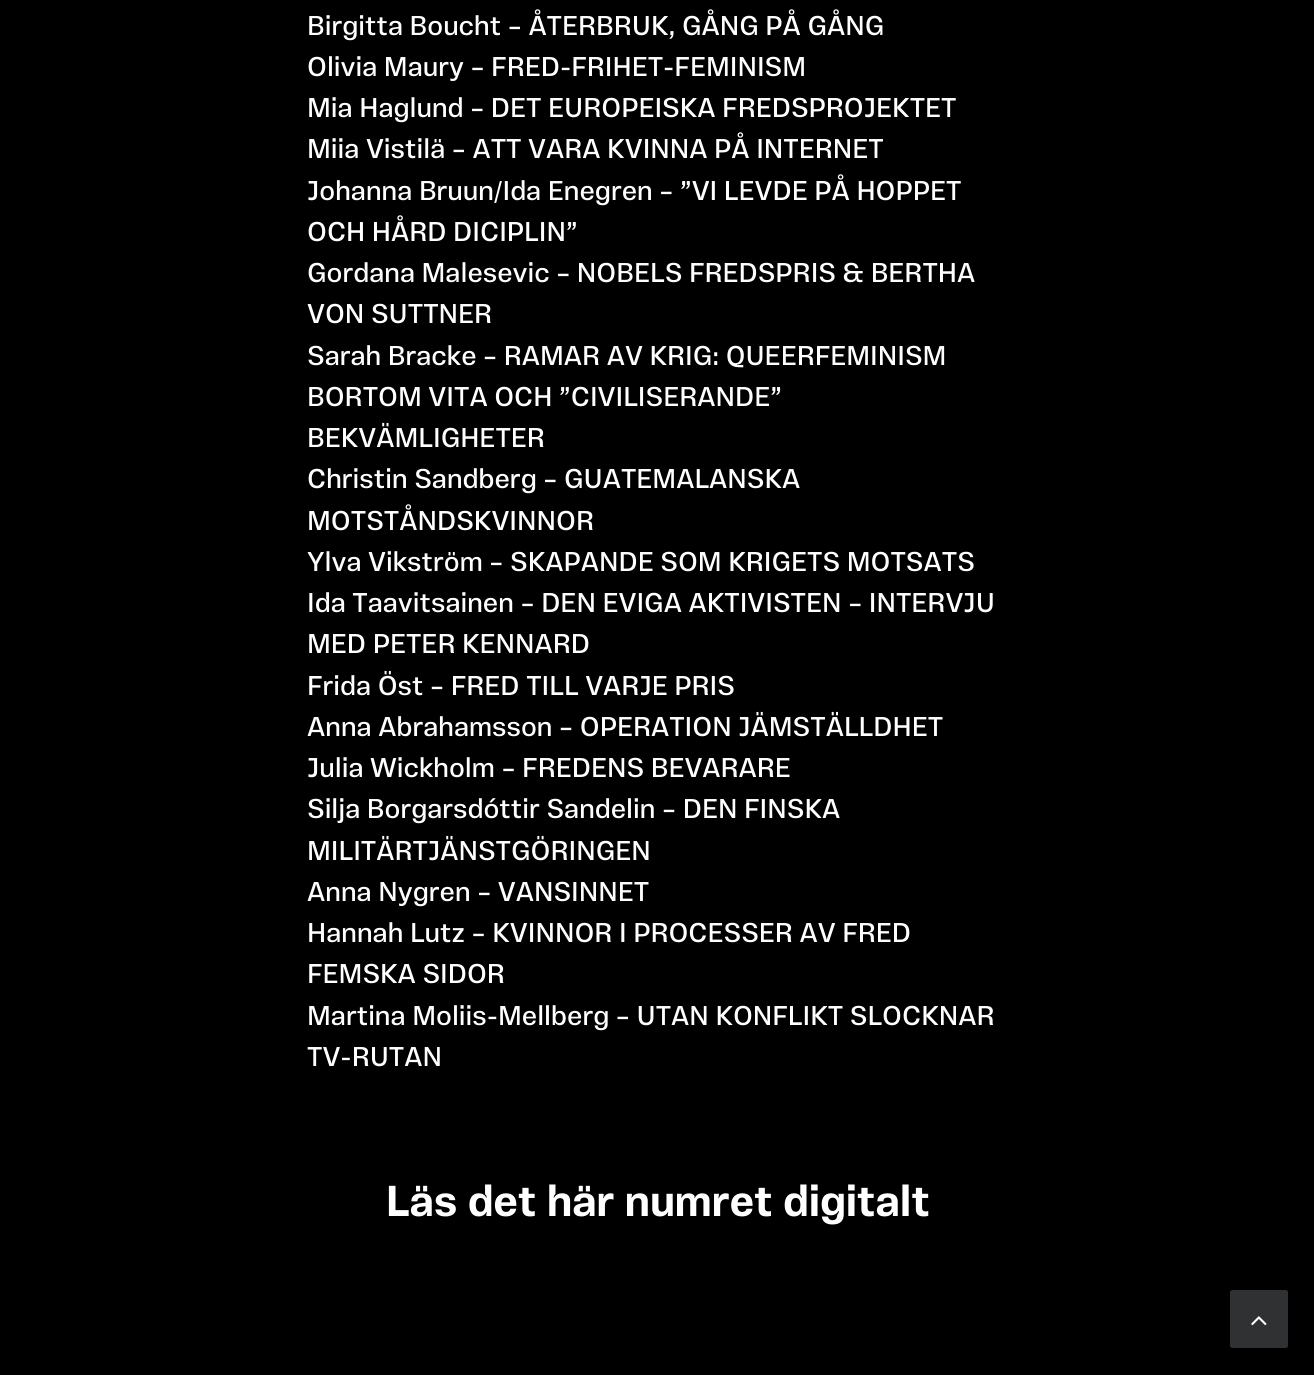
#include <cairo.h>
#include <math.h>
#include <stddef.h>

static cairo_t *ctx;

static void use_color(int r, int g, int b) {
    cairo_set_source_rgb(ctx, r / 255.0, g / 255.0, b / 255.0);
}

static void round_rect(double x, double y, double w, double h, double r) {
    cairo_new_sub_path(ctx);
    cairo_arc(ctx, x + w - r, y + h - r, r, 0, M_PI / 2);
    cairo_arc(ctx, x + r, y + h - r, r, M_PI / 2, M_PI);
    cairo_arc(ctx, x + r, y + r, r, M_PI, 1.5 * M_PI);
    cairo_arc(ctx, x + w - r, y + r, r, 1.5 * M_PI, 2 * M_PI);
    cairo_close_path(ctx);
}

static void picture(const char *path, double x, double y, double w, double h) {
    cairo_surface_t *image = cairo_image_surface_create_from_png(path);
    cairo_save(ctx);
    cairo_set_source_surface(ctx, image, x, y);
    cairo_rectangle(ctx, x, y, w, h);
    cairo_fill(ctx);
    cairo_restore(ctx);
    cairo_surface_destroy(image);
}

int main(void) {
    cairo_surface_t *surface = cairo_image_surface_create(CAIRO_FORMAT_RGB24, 1314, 1375);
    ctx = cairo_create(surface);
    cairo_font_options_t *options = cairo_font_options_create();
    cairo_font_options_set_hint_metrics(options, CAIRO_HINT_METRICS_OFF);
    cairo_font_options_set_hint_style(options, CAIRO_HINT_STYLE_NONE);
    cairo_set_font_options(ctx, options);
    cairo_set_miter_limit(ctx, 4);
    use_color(0, 0, 0);
    cairo_paint(ctx);
    cairo_select_font_face(ctx, "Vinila", CAIRO_FONT_SLANT_NORMAL, CAIRO_FONT_WEIGHT_NORMAL);
    cairo_set_font_size(ctx, 27.5);
    use_color(255, 255, 255);
    cairo_move_to(ctx, 307, 35);
    cairo_show_text(ctx, "Birgitta Boucht – ÅTERBRUK, GÅNG PÅ GÅNG");
    cairo_move_to(ctx, 307, 76);
    cairo_show_text(ctx, "Olivia Maury – FRED-FRIHET-FEMINISM");
    cairo_move_to(ctx, 307, 117);
    cairo_show_text(ctx, "Mia Haglund – DET EUROPEISKA FREDSPROJEKTET");
    cairo_move_to(ctx, 307, 158);
    cairo_show_text(ctx, "Miia Vistilä – ATT VARA KVINNA PÅ INTERNET");
    cairo_move_to(ctx, 307, 200);
    cairo_show_text(ctx, "Johanna Bruun/Ida Enegren – ”VI LEVDE PÅ HOPPET");
    cairo_move_to(ctx, 307, 241);
    cairo_show_text(ctx, "OCH HÅRD DICIPLIN”");
    cairo_move_to(ctx, 307, 282);
    cairo_show_text(ctx, "Gordana Malesevic – NOBELS FREDSPRIS & BERTHA");
    cairo_move_to(ctx, 307, 323);
    cairo_show_text(ctx, "VON SUTTNER");
    cairo_move_to(ctx, 307, 365);
    cairo_show_text(ctx, "Sarah Bracke – RAMAR AV KRIG: QUEERFEMINISM");
    cairo_move_to(ctx, 307, 406);
    cairo_show_text(ctx, "BORTOM VITA OCH ”CIVILISERANDE”");
    cairo_move_to(ctx, 307, 447);
    cairo_show_text(ctx, "BEKVÄMLIGHETER");
    cairo_move_to(ctx, 307, 488);
    cairo_show_text(ctx, "Christin Sandberg – GUATEMALANSKA");
    cairo_move_to(ctx, 307, 530);
    cairo_show_text(ctx, "MOTSTÅNDSKVINNOR");
    cairo_move_to(ctx, 307, 571);
    cairo_show_text(ctx, "Ylva Vikström – SKAPANDE SOM KRIGETS MOTSATS");
    cairo_move_to(ctx, 307, 612);
    cairo_show_text(ctx, "Ida Taavitsainen – DEN EVIGA AKTIVISTEN – INTERVJU");
    cairo_move_to(ctx, 307, 653);
    cairo_show_text(ctx, "MED PETER KENNARD");
    cairo_move_to(ctx, 307, 695);
    cairo_show_text(ctx, "Frida Öst – FRED TILL VARJE PRIS");
    cairo_move_to(ctx, 307, 736);
    cairo_show_text(ctx, "Anna Abrahamsson – OPERATION JÄMSTÄLLDHET");
    cairo_move_to(ctx, 307, 777);
    cairo_show_text(ctx, "Julia Wickholm – FREDENS BEVARARE");
    cairo_move_to(ctx, 307, 818);
    cairo_show_text(ctx, "Silja Borgarsdóttir Sandelin – DEN FINSKA");
    cairo_move_to(ctx, 307, 860);
    cairo_show_text(ctx, "MILITÄRTJÄNSTGÖRINGEN");
    cairo_move_to(ctx, 307, 901);
    cairo_show_text(ctx, "Anna Nygren – VANSINNET");
    cairo_move_to(ctx, 307, 942);
    cairo_show_text(ctx, "Hannah Lutz – KVINNOR I PROCESSER AV FRED");
    cairo_move_to(ctx, 307, 983);
    cairo_show_text(ctx, "FEMSKA SIDOR");
    cairo_move_to(ctx, 307, 1025);
    cairo_show_text(ctx, "Martina Moliis-Mellberg – UTAN KONFLIKT SLOCKNAR");
    cairo_move_to(ctx, 307, 1066);
    cairo_show_text(ctx, "TV-RUTAN");
    cairo_select_font_face(ctx, "Vinila", CAIRO_FONT_SLANT_NORMAL, CAIRO_FONT_WEIGHT_BOLD);
    cairo_set_font_size(ctx, 43.75);
    cairo_move_to(ctx, 386, 1216);
    cairo_show_text(ctx, "Läs det här numret digitalt");
    use_color(48, 49, 51);
    round_rect(1230.5, 1290.5, 57, 57, 2);
    cairo_fill_preserve(ctx);
    cairo_set_line_width(ctx, 1);
    cairo_stroke(ctx);
    picture("img1.png", 1251, 1316, 16, 10);
    cairo_surface_write_to_png(surface, "result.png");
    cairo_font_options_destroy(options);
    cairo_destroy(ctx);
    cairo_surface_destroy(surface);
    return 0;
}
